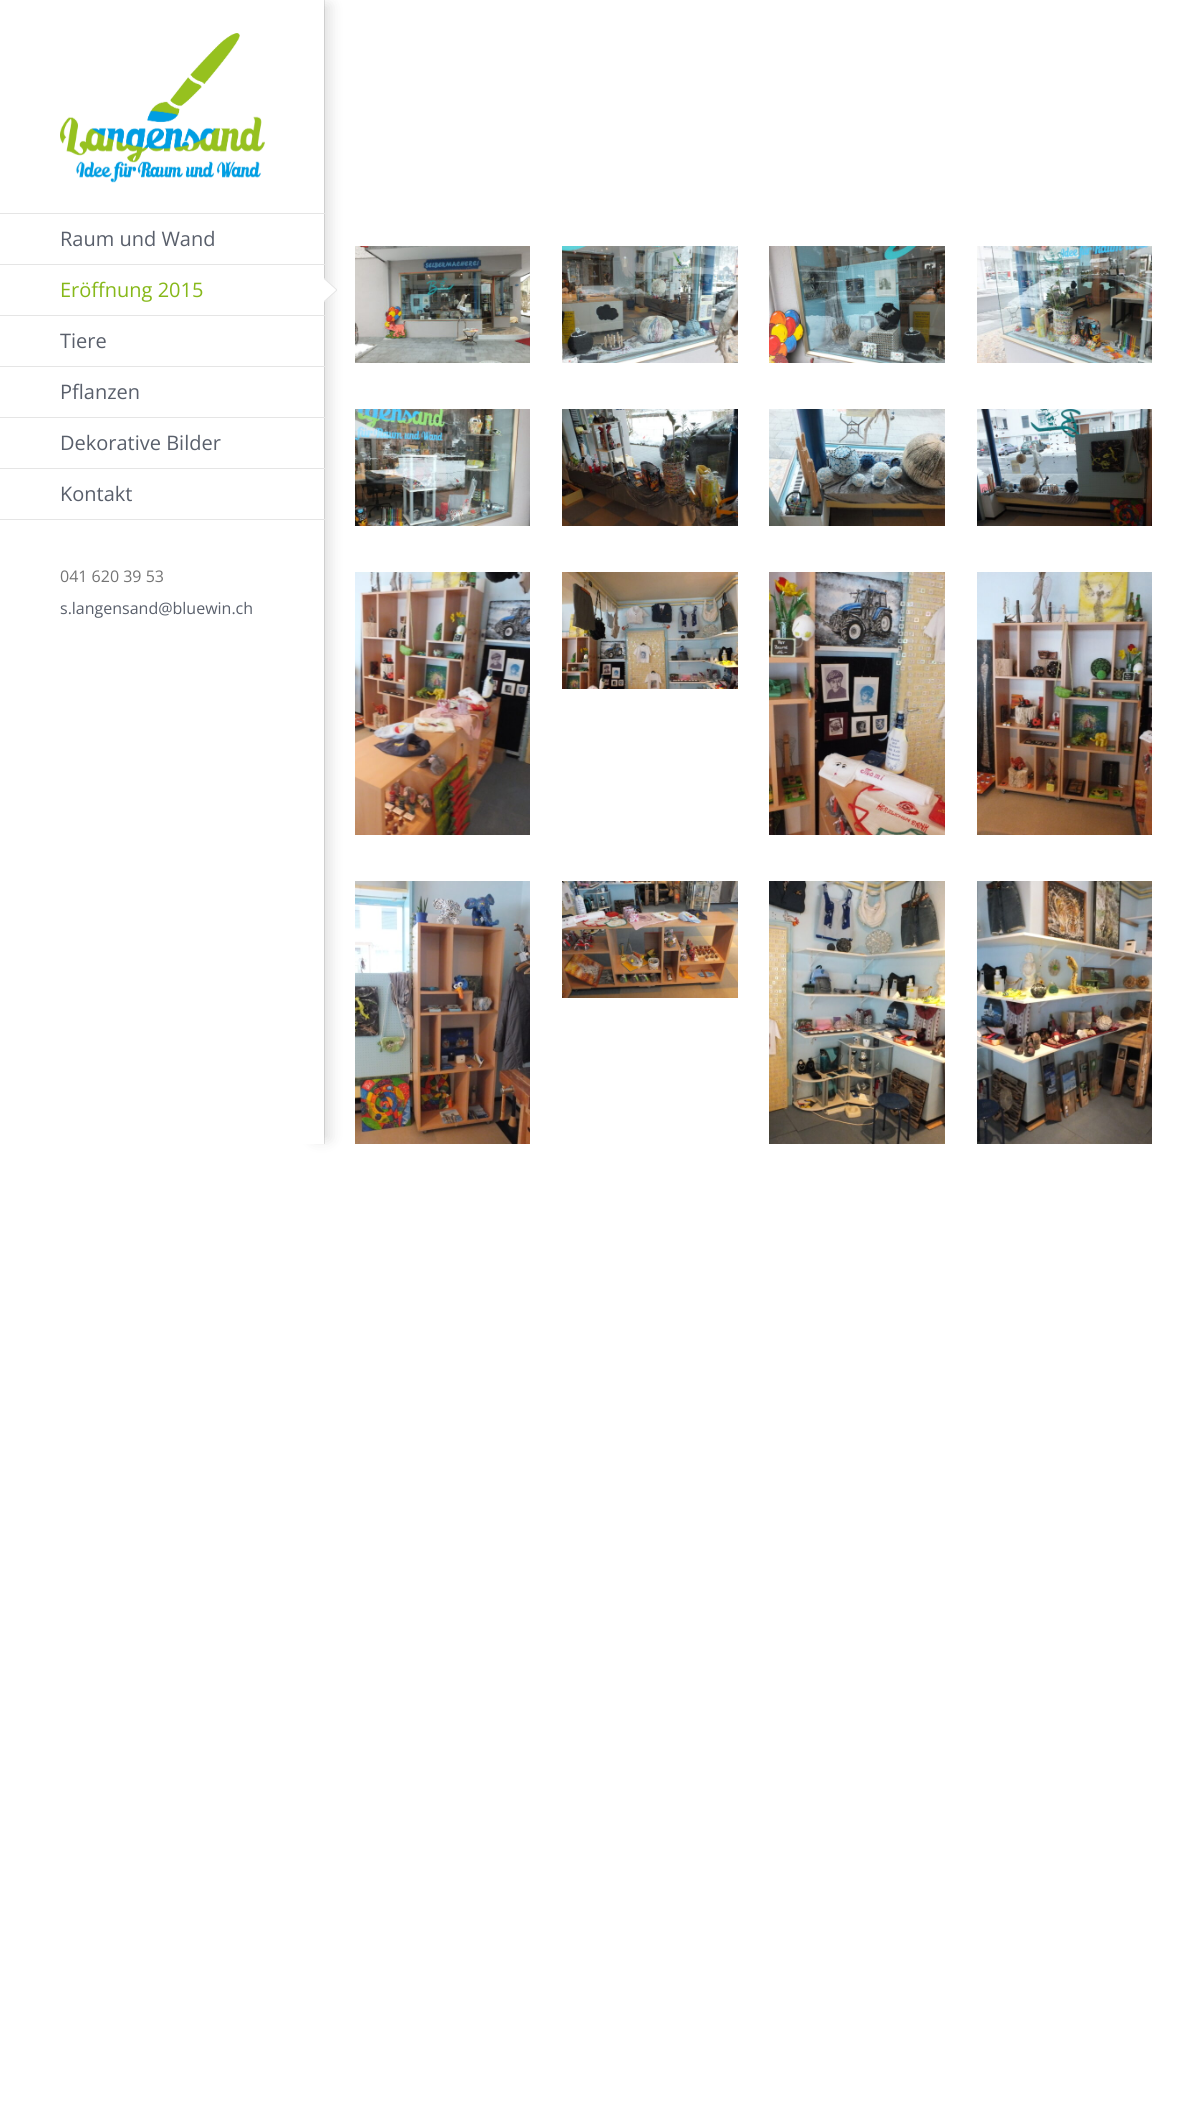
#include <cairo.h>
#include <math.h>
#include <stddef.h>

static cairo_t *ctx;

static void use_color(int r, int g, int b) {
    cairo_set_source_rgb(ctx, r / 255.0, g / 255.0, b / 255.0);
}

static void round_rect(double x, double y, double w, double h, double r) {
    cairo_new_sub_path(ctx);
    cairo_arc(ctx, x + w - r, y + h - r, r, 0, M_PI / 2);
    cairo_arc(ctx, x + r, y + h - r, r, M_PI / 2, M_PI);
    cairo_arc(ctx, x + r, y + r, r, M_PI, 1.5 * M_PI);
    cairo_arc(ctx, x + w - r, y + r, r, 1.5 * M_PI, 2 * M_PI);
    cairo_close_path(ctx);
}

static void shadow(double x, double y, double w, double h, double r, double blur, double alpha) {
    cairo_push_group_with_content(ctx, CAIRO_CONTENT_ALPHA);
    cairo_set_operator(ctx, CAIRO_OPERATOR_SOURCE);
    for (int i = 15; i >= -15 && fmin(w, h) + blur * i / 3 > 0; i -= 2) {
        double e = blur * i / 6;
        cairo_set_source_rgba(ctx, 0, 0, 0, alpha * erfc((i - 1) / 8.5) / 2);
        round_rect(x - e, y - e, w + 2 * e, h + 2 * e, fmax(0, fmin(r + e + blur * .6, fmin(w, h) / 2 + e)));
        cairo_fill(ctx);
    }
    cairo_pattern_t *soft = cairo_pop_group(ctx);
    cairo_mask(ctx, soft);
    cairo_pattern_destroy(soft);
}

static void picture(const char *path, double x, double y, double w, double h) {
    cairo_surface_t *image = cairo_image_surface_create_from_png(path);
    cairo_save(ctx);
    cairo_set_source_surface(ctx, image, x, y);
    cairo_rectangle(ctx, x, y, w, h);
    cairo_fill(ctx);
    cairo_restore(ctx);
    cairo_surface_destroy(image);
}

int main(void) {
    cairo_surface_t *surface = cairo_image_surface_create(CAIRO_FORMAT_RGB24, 1182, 2127);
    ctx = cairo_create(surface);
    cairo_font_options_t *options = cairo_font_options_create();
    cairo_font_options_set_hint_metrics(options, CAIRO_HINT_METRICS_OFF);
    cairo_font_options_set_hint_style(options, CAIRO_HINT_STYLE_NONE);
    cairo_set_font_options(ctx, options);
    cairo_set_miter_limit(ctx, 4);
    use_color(255, 255, 255);
    cairo_paint(ctx);
    picture("img1.png", 60, 33, 205, 150);
    use_color(229, 229, 229);
    cairo_rectangle(ctx, 324, 0, 1, 1144);
    cairo_fill(ctx);
    cairo_save(ctx);
    cairo_set_fill_rule(ctx, CAIRO_FILL_RULE_EVEN_ODD);
    cairo_new_path(ctx);
    cairo_move_to(ctx, 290, 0);
    cairo_line_to(ctx, 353, 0);
    cairo_line_to(ctx, 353, 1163);
    cairo_line_to(ctx, 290, 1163);
    cairo_close_path(ctx);
    cairo_move_to(ctx, 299, 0);
    cairo_line_to(ctx, 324, 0);
    cairo_line_to(ctx, 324, 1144);
    cairo_line_to(ctx, 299, 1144);
    cairo_close_path(ctx);
    cairo_clip(ctx);
    use_color(0, 0, 0);
    shadow(314, 5, 15, 1134, 0, 7.5, 0.14);
    cairo_restore(ctx);
    cairo_rectangle(ctx, 0, 213, 325, 1);
    cairo_fill(ctx);
    cairo_rectangle(ctx, 0, 264, 325, 1);
    cairo_fill(ctx);
    cairo_select_font_face(ctx, "Open Sans", CAIRO_FONT_SLANT_NORMAL, CAIRO_FONT_WEIGHT_NORMAL);
    cairo_set_font_size(ctx, 20);
    use_color(89, 95, 107);
    cairo_move_to(ctx, 60, 246);
    cairo_show_text(ctx, "Raum und Wand");
    use_color(229, 229, 229);
    cairo_rectangle(ctx, 0, 315, 325, 1);
    cairo_fill(ctx);
    use_color(134, 184, 25);
    cairo_move_to(ctx, 60, 297);
    cairo_show_text(ctx, "Eröffnung 2015");
    cairo_save(ctx);
    cairo_rectangle(ctx, 324, 278, 13, 25);
    cairo_clip(ctx);
    use_color(255, 255, 255);
    cairo_new_path(ctx);
    cairo_move_to(ctx, 323, 277.5);
    cairo_line_to(ctx, 337, 290);
    cairo_line_to(ctx, 323, 302.5);
    cairo_close_path(ctx);
    cairo_fill_preserve(ctx);
    use_color(229, 229, 229);
    cairo_set_line_width(ctx, 1);
    cairo_stroke(ctx);
    cairo_restore(ctx);
    use_color(229, 229, 229);
    cairo_rectangle(ctx, 0, 366, 325, 1);
    cairo_fill(ctx);
    use_color(89, 95, 107);
    cairo_move_to(ctx, 60, 348);
    cairo_show_text(ctx, "Tiere");
    use_color(229, 229, 229);
    cairo_rectangle(ctx, 0, 417, 325, 1);
    cairo_fill(ctx);
    use_color(89, 95, 107);
    cairo_move_to(ctx, 60, 399);
    cairo_show_text(ctx, "Pflanzen");
    use_color(229, 229, 229);
    cairo_rectangle(ctx, 0, 468, 325, 1);
    cairo_fill(ctx);
    use_color(89, 95, 107);
    cairo_move_to(ctx, 60, 450);
    cairo_show_text(ctx, "Dekorative Bilder");
    use_color(229, 229, 229);
    cairo_rectangle(ctx, 0, 519, 325, 1);
    cairo_fill(ctx);
    use_color(89, 95, 107);
    cairo_move_to(ctx, 60, 501);
    cairo_show_text(ctx, "Kontakt");
    cairo_set_font_size(ctx, 16);
    use_color(116, 116, 116);
    cairo_move_to(ctx, 60, 582);
    cairo_show_text(ctx, "041 620 39 53");
    use_color(89, 95, 107);
    cairo_move_to(ctx, 60, 614);
    cairo_show_text(ctx, "s.langensand@bluewin.ch");
    picture("img2.png", 355, 246, 175, 117);
    picture("img3.png", 562, 246, 176, 117);
    picture("img4.png", 769, 246, 176, 117);
    picture("img5.png", 977, 246, 175, 117);
    picture("img6.png", 355, 409, 175, 117);
    picture("img7.png", 562, 409, 176, 117);
    picture("img8.png", 769, 409, 176, 117);
    picture("img9.png", 977, 409, 175, 117);
    picture("img10.png", 355, 572, 175, 263);
    picture("img11.png", 562, 572, 176, 117);
    picture("img12.png", 769, 572, 176, 263);
    picture("img13.png", 977, 572, 175, 263);
    picture("img14.png", 355, 881, 175, 263);
    picture("img15.png", 562, 881, 176, 117);
    picture("img16.png", 769, 881, 176, 263);
    picture("img17.png", 977, 881, 175, 263);
    cairo_surface_write_to_png(surface, "result.png");
    cairo_font_options_destroy(options);
    cairo_destroy(ctx);
    cairo_surface_destroy(surface);
    return 0;
}
